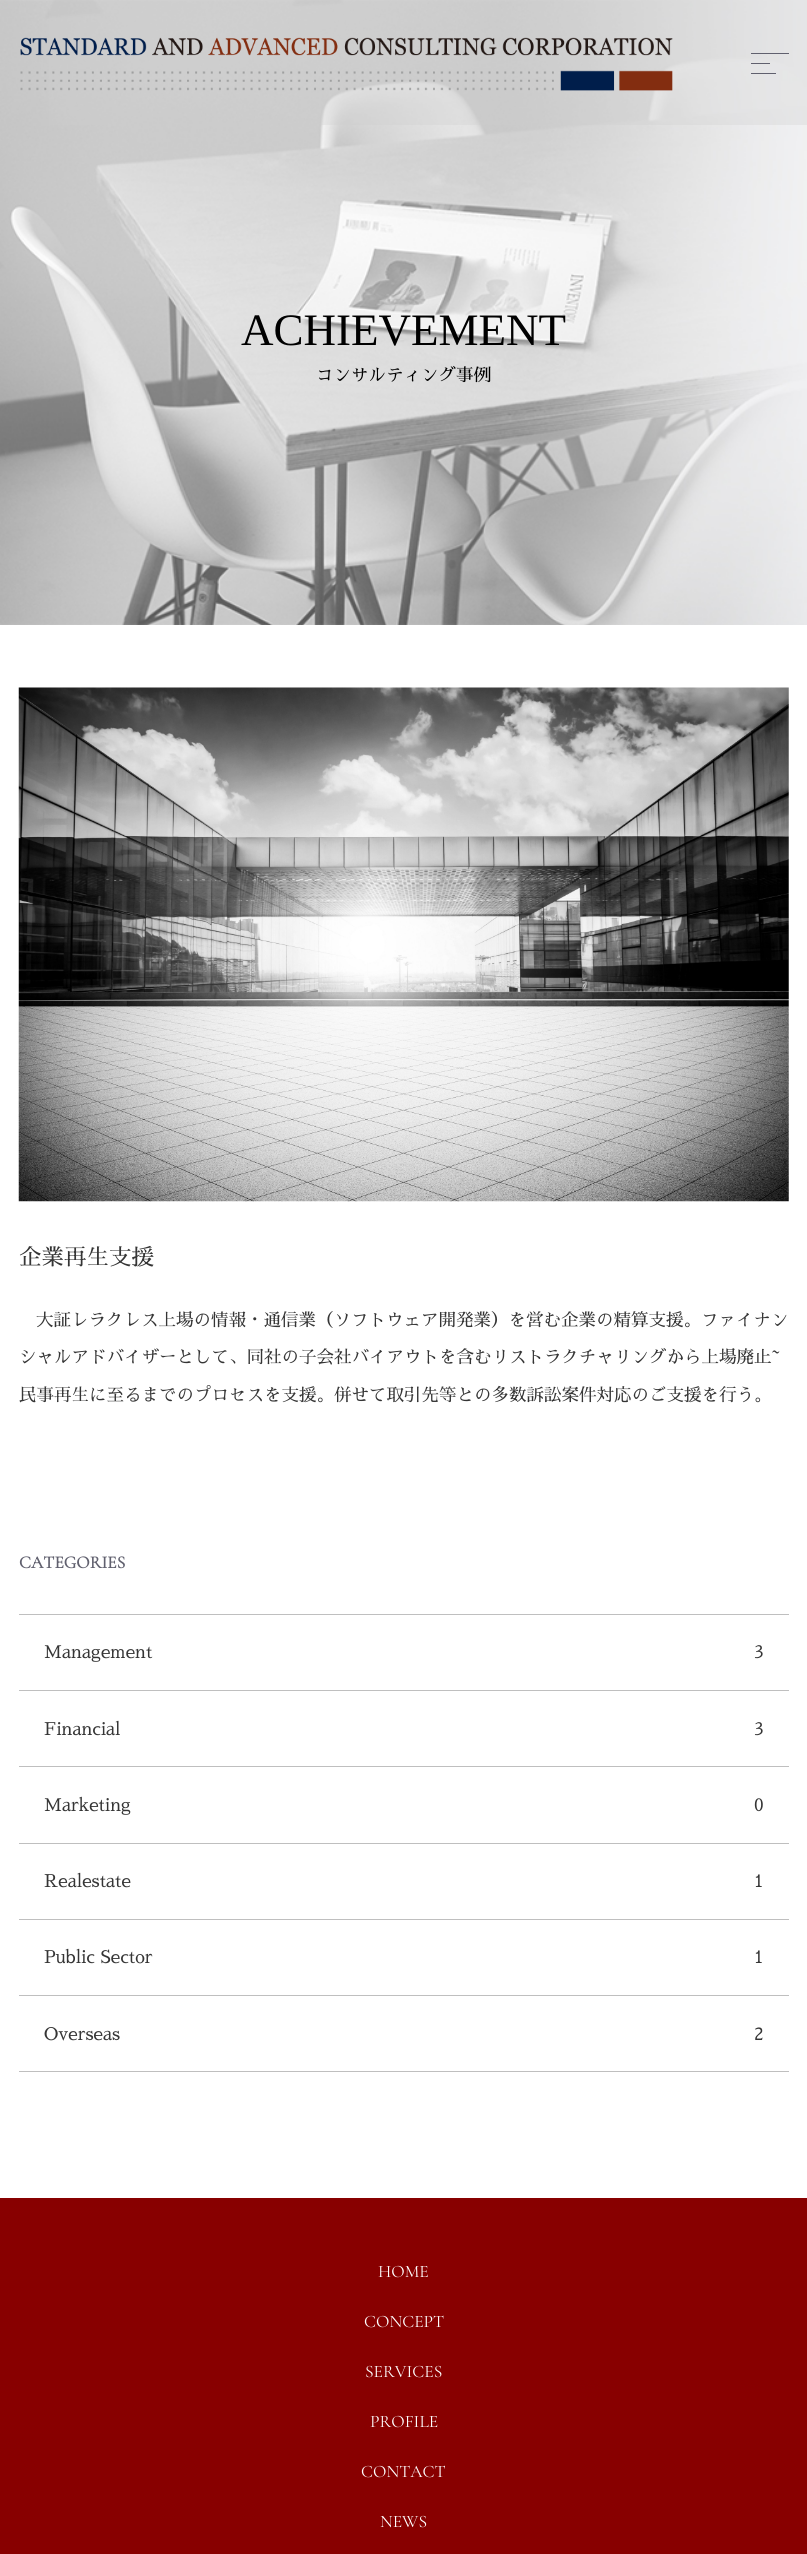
#include <cairo.h>
#include <math.h>
#include <stddef.h>

static cairo_t *ctx;

static void use_color(int r, int g, int b) {
    cairo_set_source_rgb(ctx, r / 255.0, g / 255.0, b / 255.0);
}

static void picture(const char *path, double x, double y, double w, double h) {
    cairo_surface_t *image = cairo_image_surface_create_from_png(path);
    cairo_save(ctx);
    cairo_set_source_surface(ctx, image, x, y);
    cairo_rectangle(ctx, x, y, w, h);
    cairo_fill(ctx);
    cairo_restore(ctx);
    cairo_surface_destroy(image);
}

int main(void) {
    cairo_surface_t *surface = cairo_image_surface_create(CAIRO_FORMAT_RGB24, 807, 2554);
    ctx = cairo_create(surface);
    cairo_font_options_t *options = cairo_font_options_create();
    cairo_font_options_set_hint_metrics(options, CAIRO_HINT_METRICS_OFF);
    cairo_font_options_set_hint_style(options, CAIRO_HINT_STYLE_NONE);
    cairo_set_font_options(ctx, options);
    cairo_set_miter_limit(ctx, 4);
    use_color(255, 255, 255);
    cairo_paint(ctx);
    picture("img2.png", 0, 0, 807, 625);
    cairo_set_source_rgba(ctx, 0.8, 0.8, 0.8, 0.3);
    cairo_rectangle(ctx, 49, 0, 758, 125);
    cairo_fill(ctx);
    picture("img1.png", 20, 37, 653, 54);
    use_color(96, 96, 110);
    cairo_rectangle(ctx, 751, 53, 38, 1);
    cairo_fill(ctx);
    cairo_rectangle(ctx, 751, 63, 19, 1);
    cairo_fill(ctx);
    cairo_rectangle(ctx, 751, 73, 25, 1);
    cairo_fill(ctx);
    cairo_select_font_face(ctx, "Liberation Serif", CAIRO_FONT_SLANT_NORMAL, CAIRO_FONT_WEIGHT_NORMAL);
    cairo_set_font_size(ctx, 45);
    use_color(0, 0, 0);
    cairo_move_to(ctx, 241, 345);
    cairo_show_text(ctx, "ACHIEVEMENT");
    cairo_select_font_face(ctx, "Sawarabi Mincho", CAIRO_FONT_SLANT_NORMAL, CAIRO_FONT_WEIGHT_NORMAL);
    cairo_set_font_size(ctx, 17.5);
    cairo_move_to(ctx, 316, 381);
    cairo_show_text(ctx, "コンサルティング事例");
    picture("img3.png", 18, 687, 771, 515);
    cairo_set_font_size(ctx, 22.5);
    use_color(53, 53, 53);
    cairo_move_to(ctx, 19, 1265);
    cairo_show_text(ctx, "企業再生支援");
    cairo_set_font_size(ctx, 17.5);
    cairo_move_to(ctx, 36, 1326);
    cairo_show_text(ctx, "大証レラクレス上場の情報・通信業（ソフトウェア開発業）を営む企業の精算支援。ファイナン");
    cairo_move_to(ctx, 19, 1363);
    cairo_show_text(ctx, "シャルアドバイザーとして、同社の子会社バイアウトを含むリストラクチャリングから上場廃止~");
    cairo_move_to(ctx, 19, 1401);
    cairo_show_text(ctx, "民事再生に至るまでのプロセスを支援。併せて取引先等との多数訴訟案件対応のご支援を行う。");
    cairo_select_font_face(ctx, "Cormorant Garamond", CAIRO_FONT_SLANT_NORMAL, CAIRO_FONT_WEIGHT_BOLD);
    use_color(96, 96, 110);
    cairo_move_to(ctx, 19, 1568);
    cairo_show_text(ctx, "CATEGORIES");
    use_color(191, 191, 191);
    cairo_rectangle(ctx, 19, 1614, 770, 1);
    cairo_fill(ctx);
    cairo_rectangle(ctx, 19, 1690, 770, 1);
    cairo_fill(ctx);
    cairo_select_font_face(ctx, "Sawarabi Mincho", CAIRO_FONT_SLANT_NORMAL, CAIRO_FONT_WEIGHT_NORMAL);
    use_color(53, 53, 53);
    cairo_move_to(ctx, 44, 1658);
    cairo_show_text(ctx, "Management");
    cairo_move_to(ctx, 754, 1658);
    cairo_show_text(ctx, "3");
    use_color(191, 191, 191);
    cairo_rectangle(ctx, 19, 1766, 770, 1);
    cairo_fill(ctx);
    use_color(53, 53, 53);
    cairo_move_to(ctx, 44, 1735);
    cairo_show_text(ctx, "Financial");
    cairo_move_to(ctx, 754, 1735);
    cairo_show_text(ctx, "3");
    use_color(191, 191, 191);
    cairo_rectangle(ctx, 19, 1843, 770, 1);
    cairo_fill(ctx);
    use_color(53, 53, 53);
    cairo_move_to(ctx, 44, 1811);
    cairo_show_text(ctx, "Marketing");
    cairo_move_to(ctx, 754, 1811);
    cairo_show_text(ctx, "0");
    use_color(191, 191, 191);
    cairo_rectangle(ctx, 19, 1919, 770, 1);
    cairo_fill(ctx);
    use_color(53, 53, 53);
    cairo_move_to(ctx, 44, 1887);
    cairo_show_text(ctx, "Realestate");
    cairo_move_to(ctx, 754, 1887);
    cairo_show_text(ctx, "1");
    use_color(191, 191, 191);
    cairo_rectangle(ctx, 19, 1995, 770, 1);
    cairo_fill(ctx);
    use_color(53, 53, 53);
    cairo_move_to(ctx, 44, 1963);
    cairo_show_text(ctx, "Public Sector");
    cairo_move_to(ctx, 754, 1963);
    cairo_show_text(ctx, "1");
    use_color(191, 191, 191);
    cairo_rectangle(ctx, 19, 2071, 770, 1);
    cairo_fill(ctx);
    use_color(53, 53, 53);
    cairo_move_to(ctx, 44, 2040);
    cairo_show_text(ctx, "Overseas");
    cairo_move_to(ctx, 754, 2040);
    cairo_show_text(ctx, "2");
    use_color(136, 0, 0);
    cairo_rectangle(ctx, 0, 2198, 807, 356);
    cairo_fill(ctx);
    cairo_select_font_face(ctx, "Cormorant Garamond Light", CAIRO_FONT_SLANT_NORMAL, CAIRO_FONT_WEIGHT_NORMAL);
    use_color(255, 255, 255);
    cairo_move_to(ctx, 378, 2277);
    cairo_show_text(ctx, "HOME");
    cairo_move_to(ctx, 364, 2327);
    cairo_show_text(ctx, "CONCEPT");
    cairo_move_to(ctx, 365, 2377);
    cairo_show_text(ctx, "SERVICES");
    cairo_move_to(ctx, 370, 2427);
    cairo_show_text(ctx, "PROFILE");
    cairo_move_to(ctx, 361, 2477);
    cairo_show_text(ctx, "CONTACT");
    cairo_move_to(ctx, 380, 2527);
    cairo_show_text(ctx, "NEWS");
    cairo_surface_write_to_png(surface, "result.png");
    cairo_font_options_destroy(options);
    cairo_destroy(ctx);
    cairo_surface_destroy(surface);
    return 0;
}
